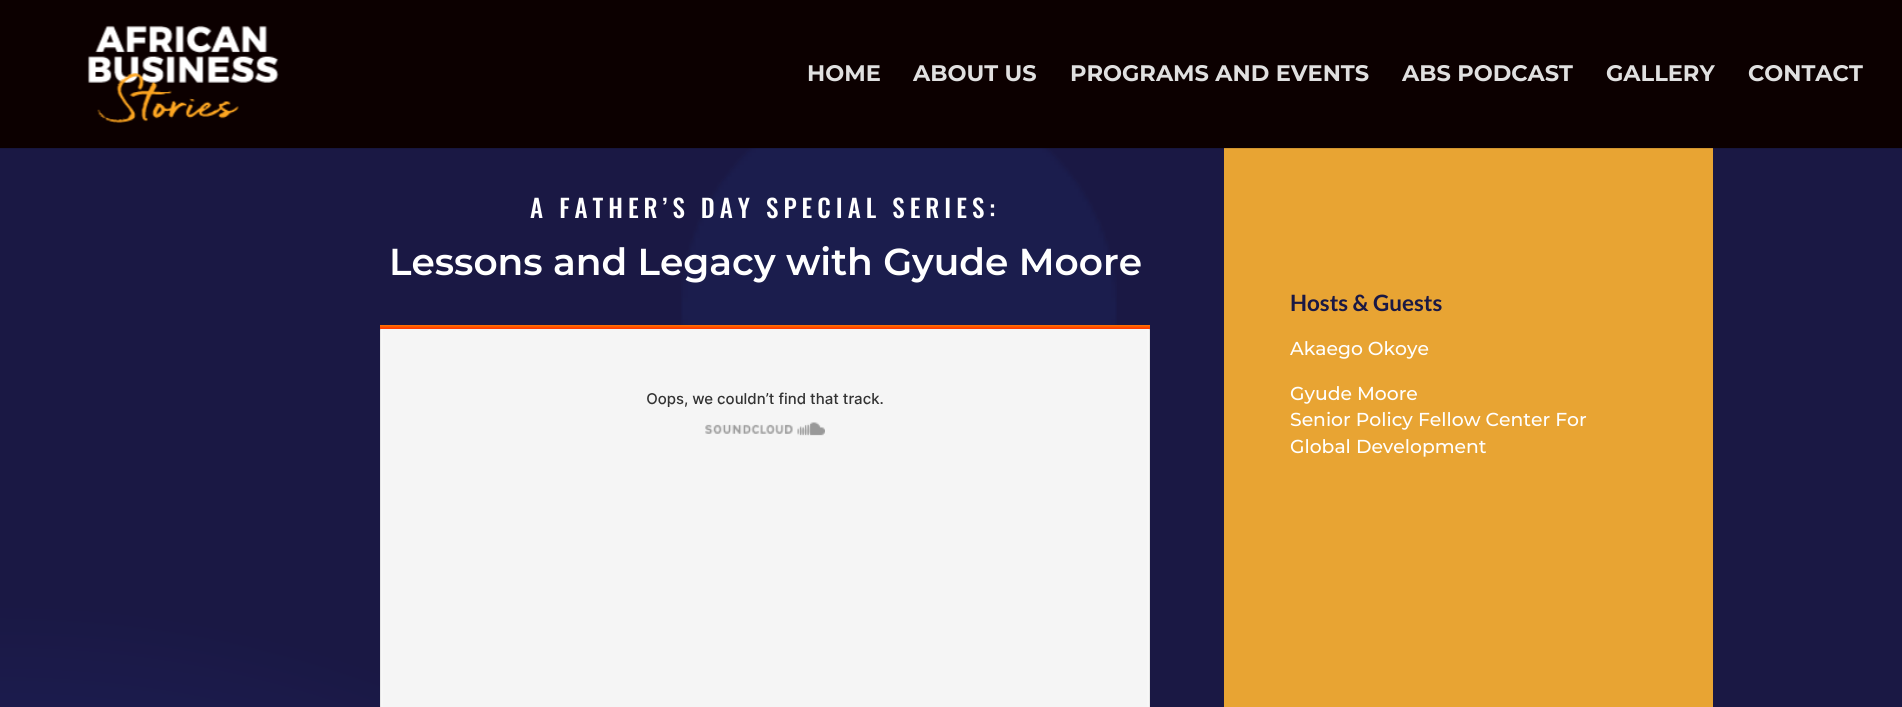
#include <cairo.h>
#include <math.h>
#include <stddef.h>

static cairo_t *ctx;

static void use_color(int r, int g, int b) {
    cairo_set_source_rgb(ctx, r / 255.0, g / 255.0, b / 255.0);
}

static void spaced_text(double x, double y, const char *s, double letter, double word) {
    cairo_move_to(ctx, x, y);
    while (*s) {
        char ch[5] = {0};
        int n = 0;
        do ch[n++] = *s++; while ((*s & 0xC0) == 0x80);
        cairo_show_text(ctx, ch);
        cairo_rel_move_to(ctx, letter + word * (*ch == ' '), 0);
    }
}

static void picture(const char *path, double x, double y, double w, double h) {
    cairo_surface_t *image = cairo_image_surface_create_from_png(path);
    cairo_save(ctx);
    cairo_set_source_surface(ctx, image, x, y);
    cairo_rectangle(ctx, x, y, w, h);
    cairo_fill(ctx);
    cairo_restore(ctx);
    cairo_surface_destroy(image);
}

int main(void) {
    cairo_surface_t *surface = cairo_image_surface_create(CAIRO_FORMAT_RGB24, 1902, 707);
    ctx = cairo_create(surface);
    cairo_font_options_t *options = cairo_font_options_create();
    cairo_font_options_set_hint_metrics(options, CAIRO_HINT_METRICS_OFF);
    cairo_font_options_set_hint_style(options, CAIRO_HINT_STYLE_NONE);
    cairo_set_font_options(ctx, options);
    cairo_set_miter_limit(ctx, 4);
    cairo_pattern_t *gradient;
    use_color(255, 255, 255);
    cairo_paint(ctx);
    gradient = cairo_pattern_create_radial(0, 1718, 0, 0, 1718, 2478);
    cairo_pattern_add_color_stop_rgba(gradient, 0, 0.169, 0.243, 0.627, 1);
    cairo_pattern_add_color_stop_rgba(gradient, 0.45, 0.102, 0.094, 0.267, 1);
    cairo_set_source(ctx, gradient);
    cairo_pattern_destroy(gradient);
    cairo_rectangle(ctx, 0, 148, 1902, 559);
    cairo_fill(ctx);
    picture("img2.png", 681, 148, 436, 177);
    use_color(232, 164, 51);
    cairo_rectangle(ctx, 1224, 148, 489, 559);
    cairo_fill(ctx);
    cairo_set_source_rgba(ctx, 0, 0, 0, 0.1);
    cairo_new_path(ctx);
    cairo_move_to(ctx, 0, 148);
    cairo_line_to(ctx, 0, 149);
    cairo_line_to(ctx, 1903, 149);
    cairo_line_to(ctx, 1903, 1);
    cairo_line_to(ctx, 1902, 1);
    cairo_line_to(ctx, 1902, 148);
    cairo_close_path(ctx);
    cairo_fill(ctx);
    use_color(12, 0, 0);
    cairo_rectangle(ctx, 0, 0, 1902, 148);
    cairo_fill(ctx);
    picture("img1.png", 87, 25, 192, 98);
    cairo_select_font_face(ctx, "Montserrat", CAIRO_FONT_SLANT_NORMAL, CAIRO_FONT_WEIGHT_BOLD);
    cairo_set_font_size(ctx, 22.5);
    use_color(224, 224, 224);
    cairo_move_to(ctx, 807, 81);
    cairo_show_text(ctx, "HOME");
    cairo_move_to(ctx, 913, 81);
    cairo_show_text(ctx, "ABOUT US");
    cairo_move_to(ctx, 1070, 81);
    cairo_show_text(ctx, "PROGRAMS AND EVENTS");
    cairo_move_to(ctx, 1402, 81);
    cairo_show_text(ctx, "ABS PODCAST");
    cairo_move_to(ctx, 1606, 81);
    cairo_show_text(ctx, "GALLERY");
    cairo_move_to(ctx, 1748, 81);
    cairo_show_text(ctx, "CONTACT");
    cairo_select_font_face(ctx, "Oswald Medium", CAIRO_FONT_SLANT_NORMAL, CAIRO_FONT_WEIGHT_NORMAL);
    cairo_set_font_size(ctx, 25);
    use_color(255, 255, 255);
    spaced_text(530, 218, "A FATHER’S DAY SPECIAL SERIES:", 5, 0);
    cairo_select_font_face(ctx, "Montserrat SemiBold", CAIRO_FONT_SLANT_NORMAL, CAIRO_FONT_WEIGHT_NORMAL);
    cairo_set_font_size(ctx, 37.5);
    cairo_move_to(ctx, 389, 275);
    cairo_show_text(ctx, "Lessons and Legacy with Gyude Moore");
    picture("img3.png", 380, 325, 770, 382);
    cairo_select_font_face(ctx, "Lato", CAIRO_FONT_SLANT_NORMAL, CAIRO_FONT_WEIGHT_BOLD);
    cairo_set_font_size(ctx, 22.5);
    use_color(26, 24, 68);
    cairo_move_to(ctx, 1290, 311);
    cairo_show_text(ctx, "Hosts & Guests");
    cairo_select_font_face(ctx, "Montserrat Medium", CAIRO_FONT_SLANT_NORMAL, CAIRO_FONT_WEIGHT_NORMAL);
    cairo_set_font_size(ctx, 18.75);
    use_color(255, 255, 255);
    cairo_move_to(ctx, 1290, 355);
    cairo_show_text(ctx, "Akaego Okoye");
    cairo_move_to(ctx, 1290, 400);
    cairo_show_text(ctx, "Gyude Moore");
    cairo_move_to(ctx, 1290, 426);
    cairo_show_text(ctx, "Senior Policy Fellow Center For");
    cairo_move_to(ctx, 1290, 453);
    cairo_show_text(ctx, "Global Development");
    cairo_surface_write_to_png(surface, "result.png");
    cairo_font_options_destroy(options);
    cairo_destroy(ctx);
    cairo_surface_destroy(surface);
    return 0;
}
